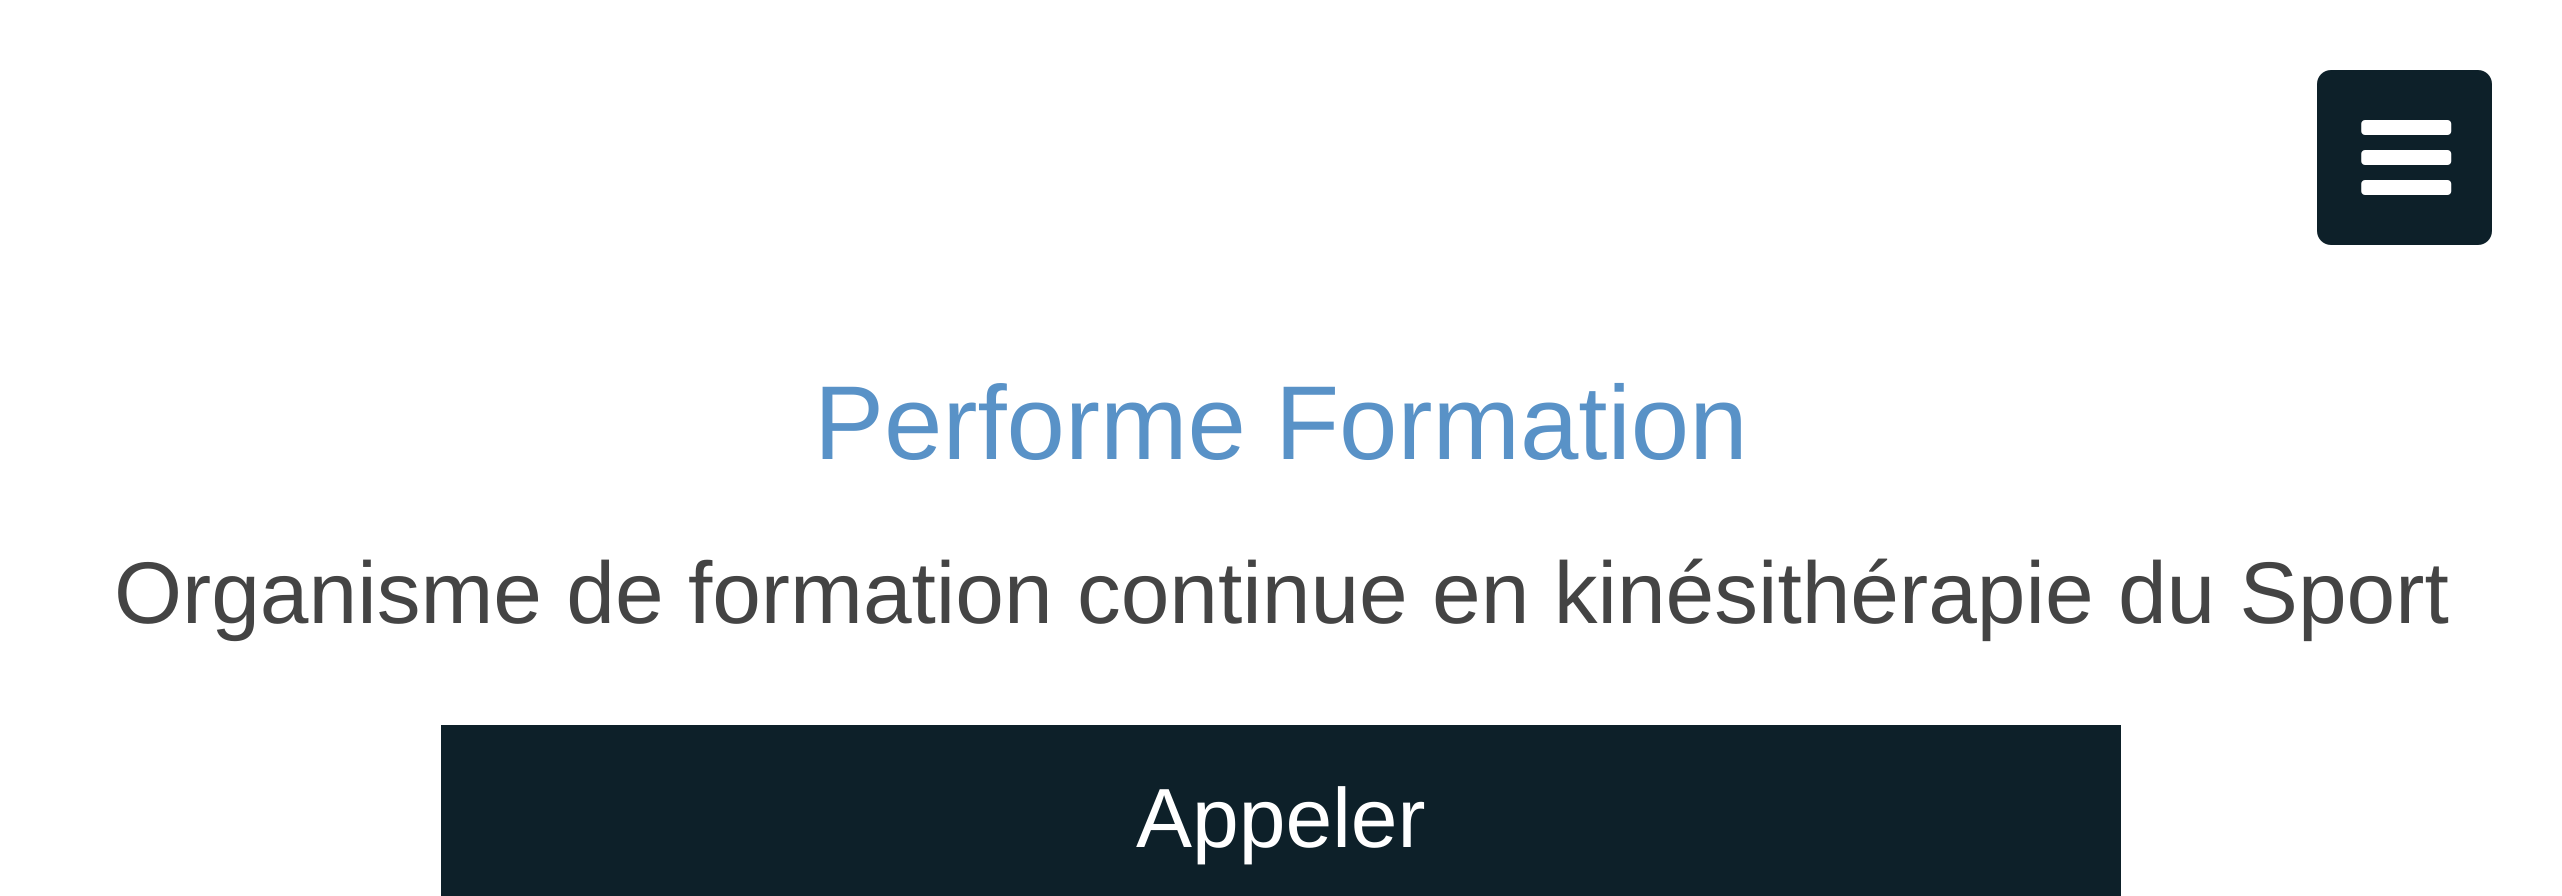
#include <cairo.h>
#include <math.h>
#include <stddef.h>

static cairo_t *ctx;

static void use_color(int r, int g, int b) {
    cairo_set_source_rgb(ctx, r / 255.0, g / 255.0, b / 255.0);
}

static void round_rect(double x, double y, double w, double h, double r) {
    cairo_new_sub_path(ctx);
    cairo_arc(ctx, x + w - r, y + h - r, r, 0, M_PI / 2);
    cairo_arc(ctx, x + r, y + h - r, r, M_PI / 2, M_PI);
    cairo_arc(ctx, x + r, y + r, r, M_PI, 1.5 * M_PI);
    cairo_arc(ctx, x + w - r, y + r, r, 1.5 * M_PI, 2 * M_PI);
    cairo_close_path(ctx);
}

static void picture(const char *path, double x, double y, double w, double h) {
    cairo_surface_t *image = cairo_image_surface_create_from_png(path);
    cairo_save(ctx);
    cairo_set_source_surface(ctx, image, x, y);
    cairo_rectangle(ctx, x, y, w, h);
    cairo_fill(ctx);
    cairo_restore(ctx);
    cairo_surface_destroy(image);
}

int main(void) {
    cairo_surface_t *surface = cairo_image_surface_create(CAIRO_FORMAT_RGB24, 2562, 896);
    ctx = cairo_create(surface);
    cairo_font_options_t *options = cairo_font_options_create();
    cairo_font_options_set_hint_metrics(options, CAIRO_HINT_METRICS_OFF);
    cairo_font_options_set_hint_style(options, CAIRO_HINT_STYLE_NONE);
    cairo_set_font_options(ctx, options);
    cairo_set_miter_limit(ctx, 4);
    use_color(255, 255, 255);
    cairo_paint(ctx);
    use_color(13, 32, 41);
    round_rect(2317, 70, 175, 175, 14);
    cairo_fill(ctx);
    picture("img1.png", 2361, 120, 91, 75);
    cairo_select_font_face(ctx, "Liberation Sans", CAIRO_FONT_SLANT_NORMAL, CAIRO_FONT_WEIGHT_NORMAL);
    cairo_set_font_size(ctx, 105);
    use_color(89, 146, 199);
    cairo_move_to(ctx, 814, 459);
    cairo_show_text(ctx, "Performe Formation");
    cairo_set_font_size(ctx, 87.5);
    use_color(68, 68, 68);
    cairo_move_to(ctx, 114, 623);
    cairo_show_text(ctx, "Organisme de formation continue en kinésithérapie du Sport");
    use_color(13, 32, 41);
    cairo_rectangle(ctx, 441, 725, 1680, 171);
    cairo_fill(ctx);
    cairo_set_font_size(ctx, 84);
    use_color(255, 255, 255);
    cairo_move_to(ctx, 1136, 847);
    cairo_show_text(ctx, "Appeler");
    cairo_surface_write_to_png(surface, "result.png");
    cairo_font_options_destroy(options);
    cairo_destroy(ctx);
    cairo_surface_destroy(surface);
    return 0;
}
